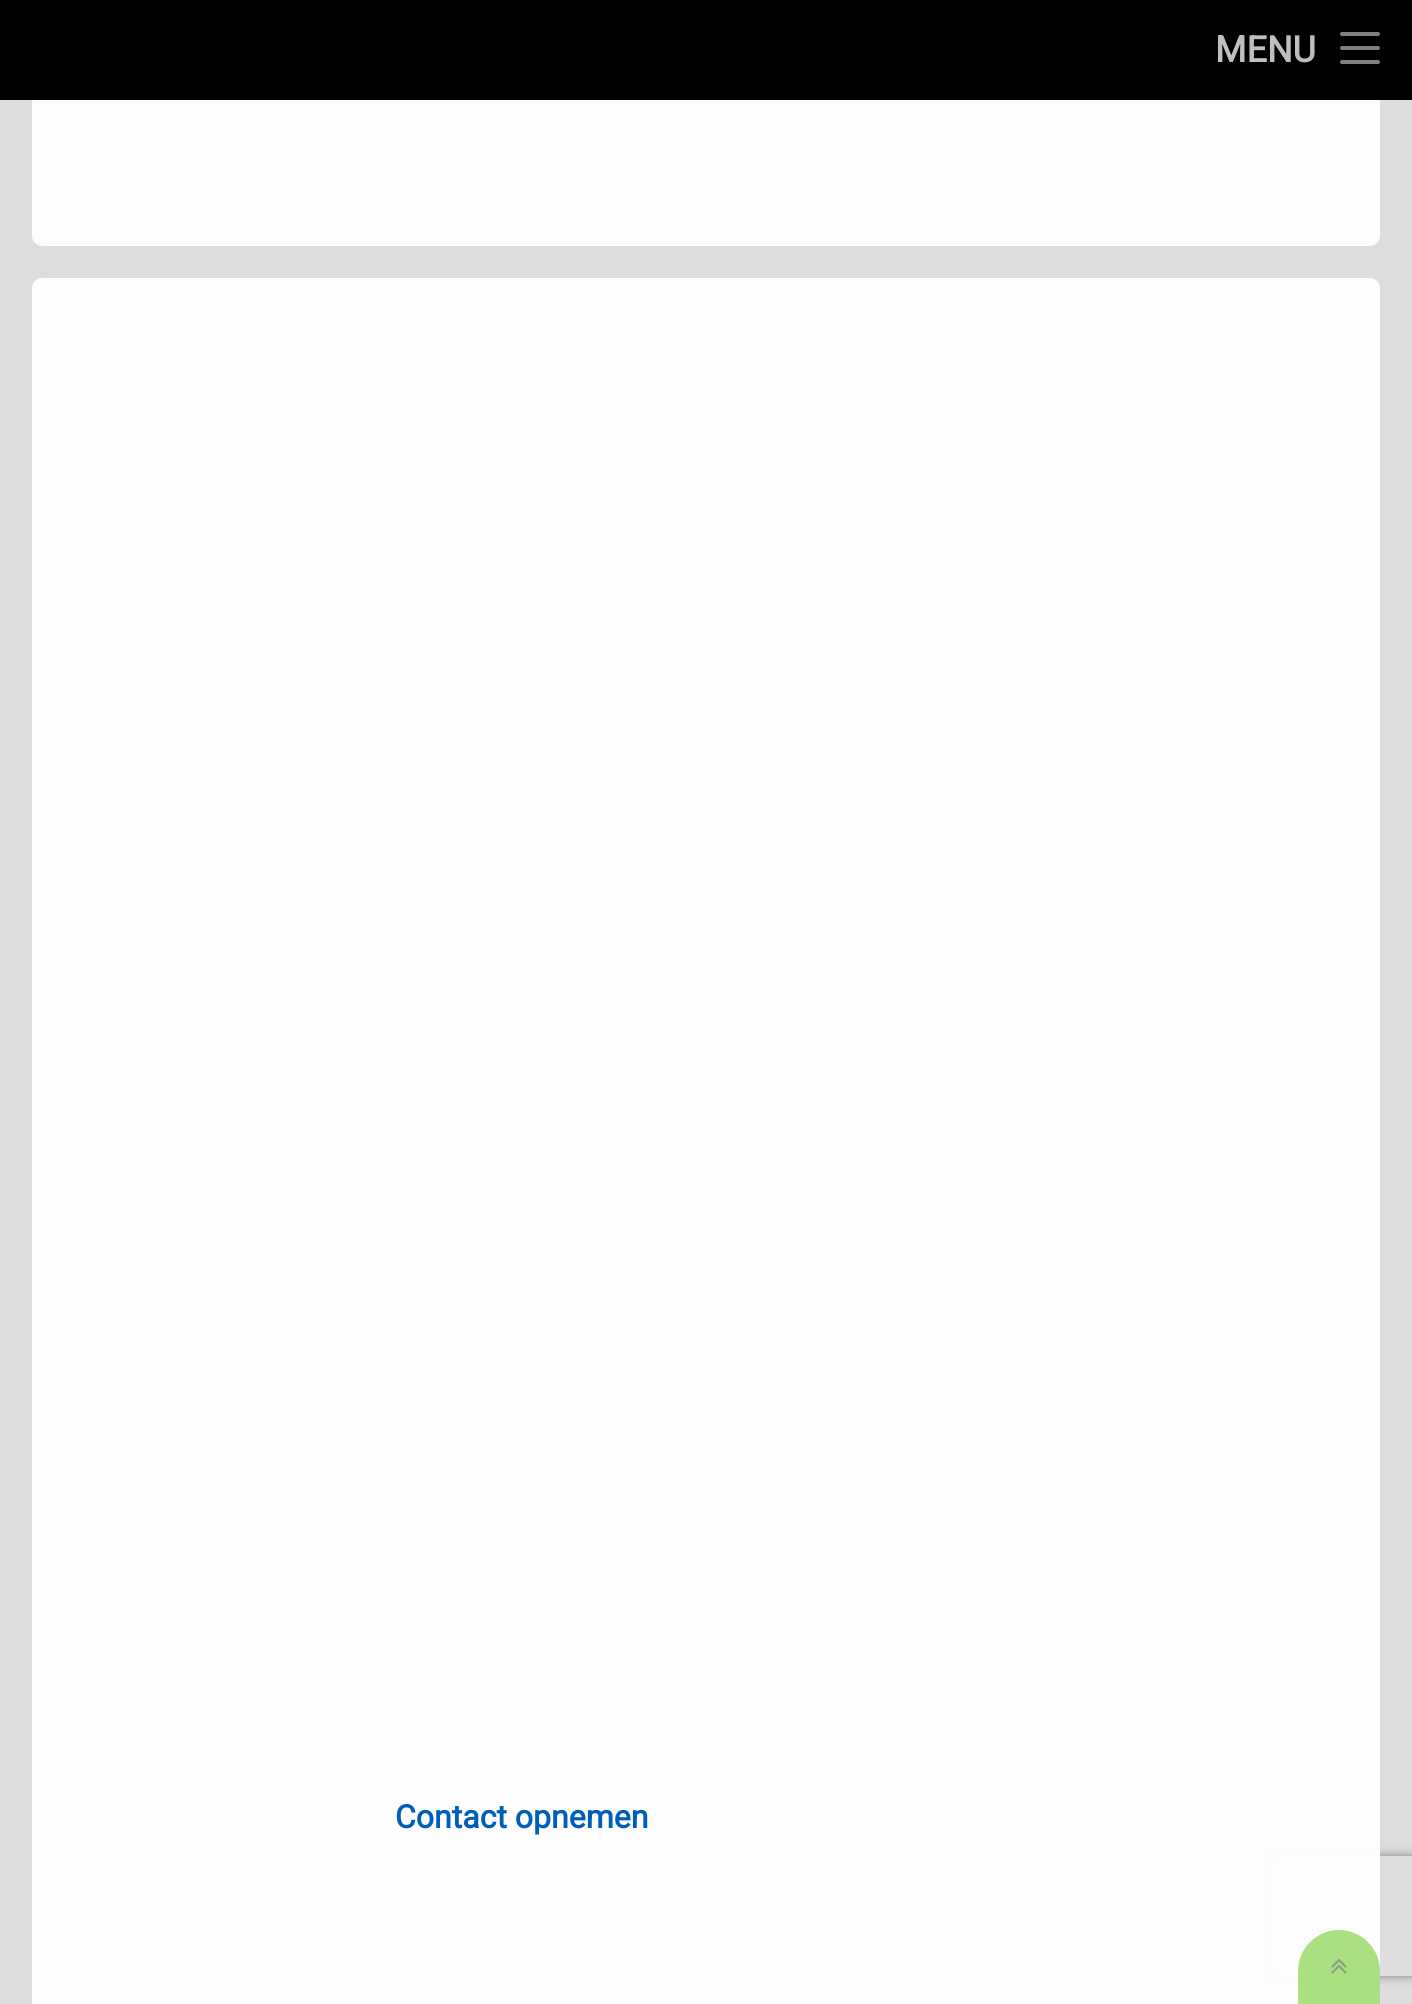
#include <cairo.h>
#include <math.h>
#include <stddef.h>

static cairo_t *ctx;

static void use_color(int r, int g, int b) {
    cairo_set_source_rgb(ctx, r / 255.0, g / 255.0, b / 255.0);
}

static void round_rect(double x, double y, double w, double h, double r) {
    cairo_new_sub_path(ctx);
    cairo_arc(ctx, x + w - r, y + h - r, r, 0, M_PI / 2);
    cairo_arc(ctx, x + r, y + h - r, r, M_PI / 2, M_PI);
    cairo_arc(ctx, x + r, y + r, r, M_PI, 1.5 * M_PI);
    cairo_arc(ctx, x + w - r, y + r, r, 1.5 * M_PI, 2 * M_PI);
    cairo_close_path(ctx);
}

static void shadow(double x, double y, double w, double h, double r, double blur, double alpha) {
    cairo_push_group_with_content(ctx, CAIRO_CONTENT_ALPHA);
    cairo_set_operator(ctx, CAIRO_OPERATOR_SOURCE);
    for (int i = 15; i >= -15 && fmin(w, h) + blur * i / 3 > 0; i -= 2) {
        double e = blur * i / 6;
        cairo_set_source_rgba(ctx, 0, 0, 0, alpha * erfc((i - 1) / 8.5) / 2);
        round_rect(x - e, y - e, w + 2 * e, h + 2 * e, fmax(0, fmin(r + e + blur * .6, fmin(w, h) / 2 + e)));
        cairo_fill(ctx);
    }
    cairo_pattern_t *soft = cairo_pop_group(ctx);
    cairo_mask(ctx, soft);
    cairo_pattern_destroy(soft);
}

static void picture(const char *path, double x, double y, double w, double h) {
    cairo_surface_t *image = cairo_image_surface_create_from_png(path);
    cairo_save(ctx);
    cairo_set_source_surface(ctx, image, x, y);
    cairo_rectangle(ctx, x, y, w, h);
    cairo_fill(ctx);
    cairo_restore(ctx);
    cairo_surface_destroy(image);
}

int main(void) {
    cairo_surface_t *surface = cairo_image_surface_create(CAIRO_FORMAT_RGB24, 1412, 2004);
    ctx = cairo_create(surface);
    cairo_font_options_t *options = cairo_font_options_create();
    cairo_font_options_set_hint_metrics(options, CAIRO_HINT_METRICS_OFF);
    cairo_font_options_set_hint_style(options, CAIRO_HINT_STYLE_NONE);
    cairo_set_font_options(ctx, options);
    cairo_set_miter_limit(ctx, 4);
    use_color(221, 221, 221);
    cairo_paint(ctx);
    use_color(253, 253, 253);
    round_rect(32, -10, 1348, 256, 10);
    cairo_fill(ctx);
    use_color(0, 0, 0);
    cairo_rectangle(ctx, 0, 0, 1412, 100);
    cairo_fill(ctx);
    cairo_select_font_face(ctx, "Roboto", CAIRO_FONT_SLANT_NORMAL, CAIRO_FONT_WEIGHT_BOLD);
    cairo_set_font_size(ctx, 36);
    use_color(191, 191, 191);
    cairo_move_to(ctx, 1215, 62);
    cairo_show_text(ctx, "MENU");
    use_color(128, 128, 128);
    round_rect(1340, 32, 40, 4, 2);
    cairo_fill(ctx);
    round_rect(1340, 46, 40, 4, 2);
    cairo_fill(ctx);
    round_rect(1340, 60, 40, 4, 2);
    cairo_fill(ctx);
    cairo_save(ctx);
    cairo_set_fill_rule(ctx, CAIRO_FILL_RULE_EVEN_ODD);
    cairo_new_path(ctx);
    cairo_move_to(ctx, 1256, 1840);
    cairo_line_to(ctx, 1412, 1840);
    cairo_line_to(ctx, 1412, 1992);
    cairo_line_to(ctx, 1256, 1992);
    cairo_close_path(ctx);
    cairo_move_to(ctx, 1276, 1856);
    cairo_line_to(ctx, 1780, 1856);
    cairo_curve_to(ctx, 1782, 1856, 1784, 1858, 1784, 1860);
    cairo_line_to(ctx, 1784, 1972);
    cairo_curve_to(ctx, 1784, 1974, 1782, 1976, 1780, 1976);
    cairo_line_to(ctx, 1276, 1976);
    cairo_curve_to(ctx, 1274, 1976, 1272, 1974, 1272, 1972);
    cairo_line_to(ctx, 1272, 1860);
    cairo_curve_to(ctx, 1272, 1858, 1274, 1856, 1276, 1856);
    cairo_close_path(ctx);
    cairo_clip(ctx);
    use_color(128, 128, 128);
    shadow(1272, 1856, 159, 120, 4, 5, 1);
    cairo_restore(ctx);
    cairo_set_source_rgba(ctx, 1, 1, 1, 0.95);
    round_rect(32, 278, 1348, 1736, 10);
    cairo_fill(ctx);
    cairo_set_font_size(ctx, 32);
    use_color(0, 94, 187);
    cairo_move_to(ctx, 395, 1828);
    cairo_show_text(ctx, "Contact opnemen");
    use_color(169, 224, 130);
    cairo_new_path(ctx);
    cairo_move_to(ctx, 1339, 1930);
    cairo_curve_to(ctx, 1361.5, 1930, 1380, 1948.5, 1380, 1971);
    cairo_line_to(ctx, 1380, 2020);
    cairo_line_to(ctx, 1298, 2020);
    cairo_line_to(ctx, 1298, 1971);
    cairo_curve_to(ctx, 1298, 1948.5, 1316.5, 1930, 1339, 1930);
    cairo_close_path(ctx);
    cairo_fill(ctx);
    picture("img1.png", 1331, 1958, 16, 16);
    cairo_surface_write_to_png(surface, "result.png");
    cairo_font_options_destroy(options);
    cairo_destroy(ctx);
    cairo_surface_destroy(surface);
    return 0;
}
